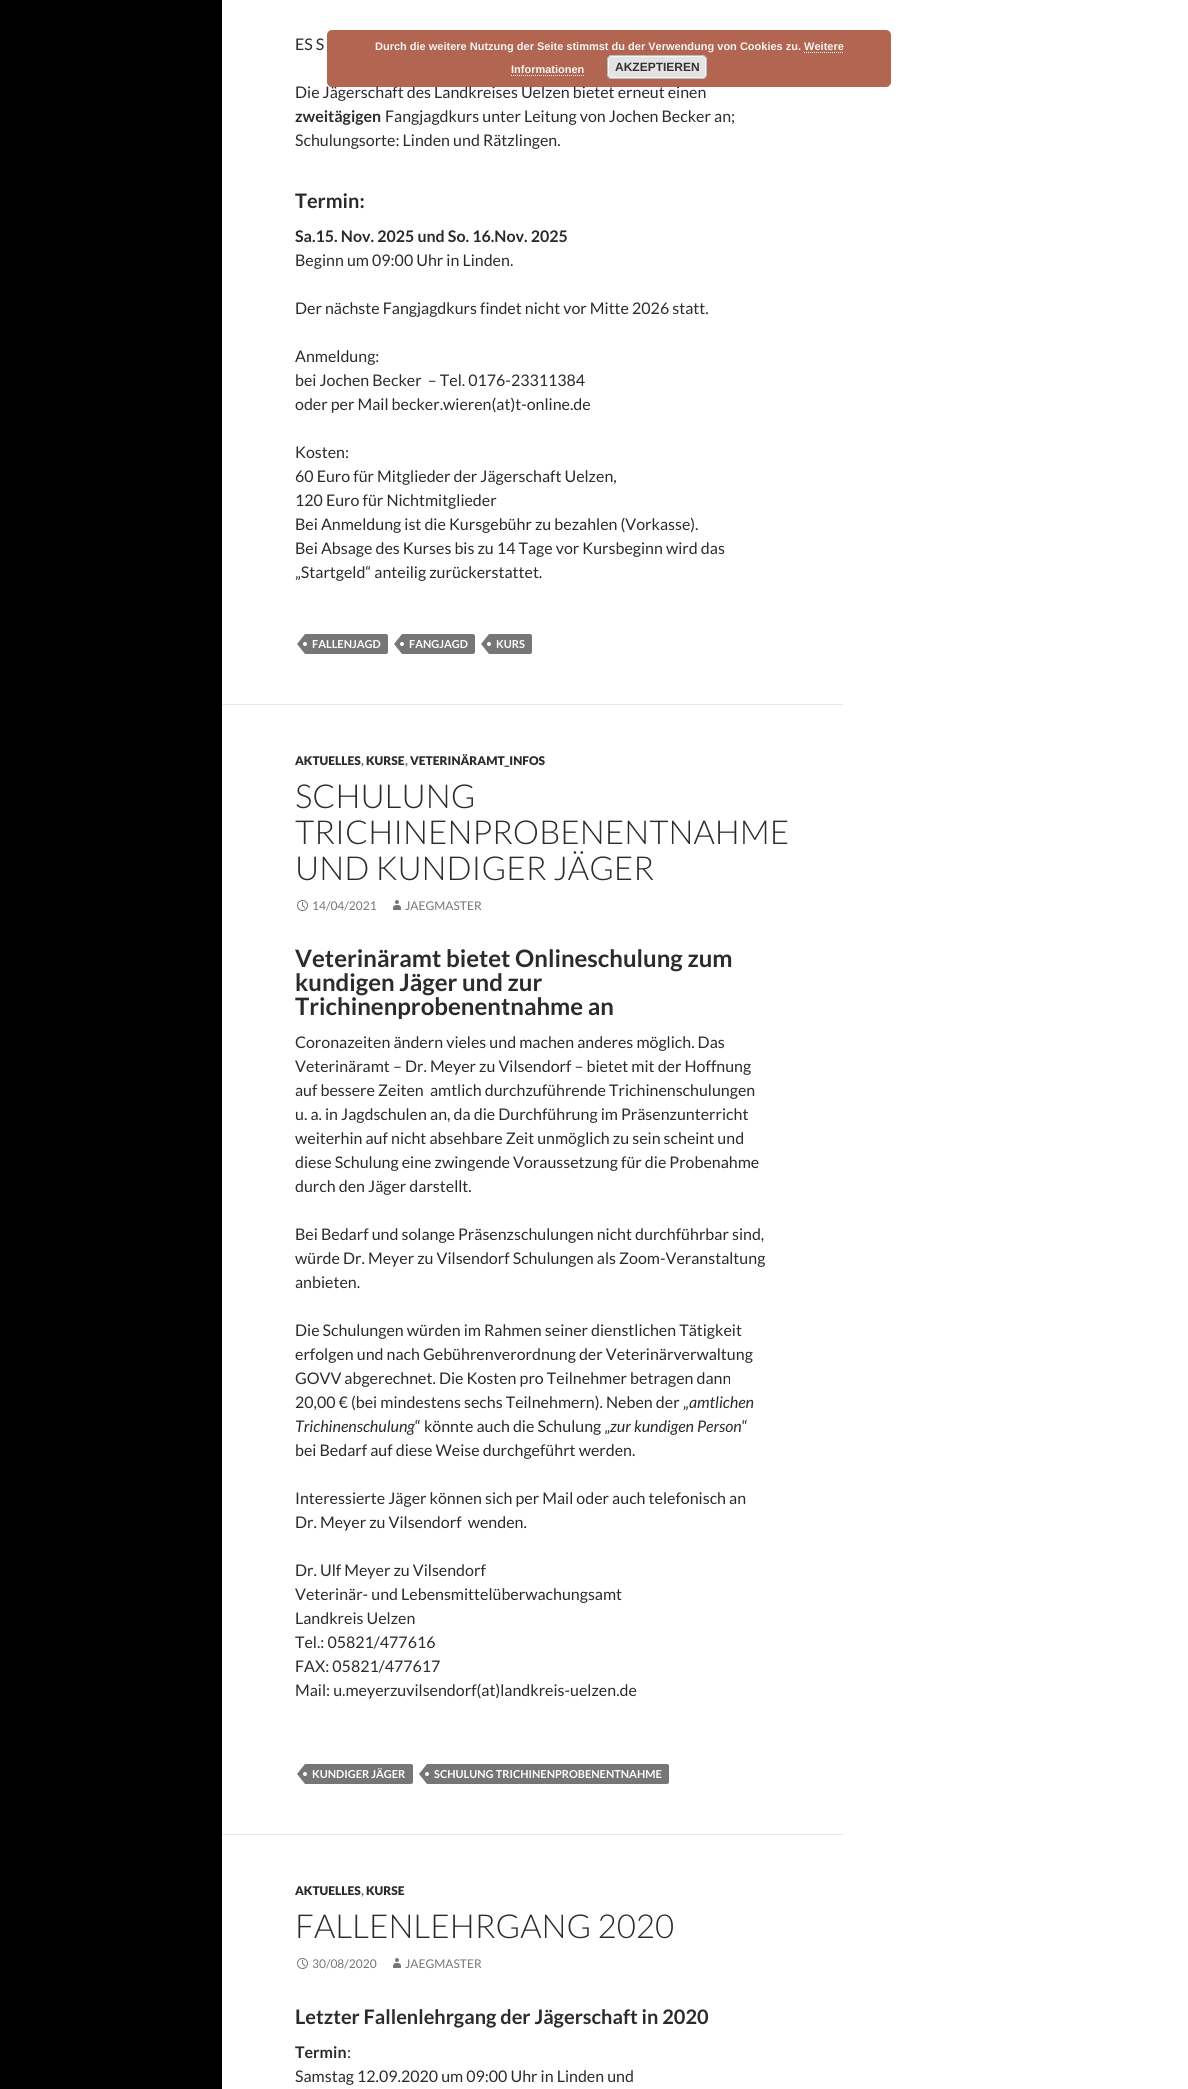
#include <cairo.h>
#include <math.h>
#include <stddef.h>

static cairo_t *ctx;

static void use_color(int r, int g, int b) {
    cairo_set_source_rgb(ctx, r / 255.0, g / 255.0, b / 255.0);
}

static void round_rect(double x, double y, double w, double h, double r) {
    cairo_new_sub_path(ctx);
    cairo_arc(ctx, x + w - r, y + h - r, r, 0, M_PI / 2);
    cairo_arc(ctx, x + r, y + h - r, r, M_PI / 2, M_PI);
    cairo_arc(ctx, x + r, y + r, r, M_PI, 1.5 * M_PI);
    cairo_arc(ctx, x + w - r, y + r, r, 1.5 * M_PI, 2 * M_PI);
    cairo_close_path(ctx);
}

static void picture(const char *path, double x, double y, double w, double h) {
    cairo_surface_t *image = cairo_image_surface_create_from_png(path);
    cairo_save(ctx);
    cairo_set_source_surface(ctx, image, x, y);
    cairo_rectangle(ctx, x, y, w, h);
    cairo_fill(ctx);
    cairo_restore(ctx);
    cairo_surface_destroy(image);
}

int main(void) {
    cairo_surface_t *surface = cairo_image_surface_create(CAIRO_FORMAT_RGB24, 1188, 2089);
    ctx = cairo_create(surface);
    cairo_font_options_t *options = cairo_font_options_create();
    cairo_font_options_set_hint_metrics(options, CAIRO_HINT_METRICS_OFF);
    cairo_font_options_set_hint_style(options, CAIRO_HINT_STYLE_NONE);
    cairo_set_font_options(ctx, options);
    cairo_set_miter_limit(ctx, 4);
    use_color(255, 255, 255);
    cairo_paint(ctx);
    use_color(0, 0, 0);
    cairo_rectangle(ctx, 0, 0, 222, 2089);
    cairo_fill(ctx);
    cairo_select_font_face(ctx, "Lato", CAIRO_FONT_SLANT_NORMAL, CAIRO_FONT_WEIGHT_NORMAL);
    cairo_set_font_size(ctx, 16);
    use_color(43, 43, 43);
    cairo_move_to(ctx, 295, 50);
    cairo_show_text(ctx, "ES S");
    cairo_move_to(ctx, 295, 98);
    cairo_show_text(ctx, "Die Jägerschaft des Landkreises Uelzen bietet erneut einen");
    cairo_select_font_face(ctx, "Lato", CAIRO_FONT_SLANT_NORMAL, CAIRO_FONT_WEIGHT_BOLD);
    cairo_move_to(ctx, 295, 122);
    cairo_show_text(ctx, "zweitägigen");
    cairo_select_font_face(ctx, "Lato", CAIRO_FONT_SLANT_NORMAL, CAIRO_FONT_WEIGHT_NORMAL);
    cairo_move_to(ctx, 385, 122);
    cairo_show_text(ctx, "Fangjagdkurs unter Leitung von Jochen Becker an;");
    cairo_move_to(ctx, 295, 146);
    cairo_show_text(ctx, "Schulungsorte: Linden und Rätzlingen.");
    cairo_select_font_face(ctx, "Lato", CAIRO_FONT_SLANT_NORMAL, CAIRO_FONT_WEIGHT_BOLD);
    cairo_set_font_size(ctx, 20);
    cairo_move_to(ctx, 295, 208);
    cairo_show_text(ctx, "Termin:");
    cairo_set_font_size(ctx, 16);
    cairo_move_to(ctx, 295, 242);
    cairo_show_text(ctx, "Sa.15. Nov. 2025 und So. 16.Nov. 2025");
    cairo_select_font_face(ctx, "Lato", CAIRO_FONT_SLANT_NORMAL, CAIRO_FONT_WEIGHT_NORMAL);
    cairo_move_to(ctx, 295, 266);
    cairo_show_text(ctx, "Beginn um 09:00 Uhr in Linden.");
    cairo_move_to(ctx, 295, 314);
    cairo_show_text(ctx, "Der nächste Fangjagdkurs findet nicht vor Mitte 2026 statt.");
    cairo_move_to(ctx, 295, 362);
    cairo_show_text(ctx, "Anmeldung:");
    cairo_move_to(ctx, 295, 386);
    cairo_show_text(ctx, "bei Jochen Becker  – Tel. 0176-23311384");
    cairo_move_to(ctx, 295, 410);
    cairo_show_text(ctx, "oder per Mail becker.wieren(at)t-online.de");
    cairo_move_to(ctx, 295, 458);
    cairo_show_text(ctx, "Kosten:");
    cairo_move_to(ctx, 295, 482);
    cairo_show_text(ctx, "60 Euro für Mitglieder der Jägerschaft Uelzen,");
    cairo_move_to(ctx, 295, 506);
    cairo_show_text(ctx, "120 Euro für Nichtmitglieder");
    cairo_move_to(ctx, 295, 530);
    cairo_show_text(ctx, "Bei Anmeldung ist die Kursgebühr zu bezahlen (Vorkasse).");
    cairo_move_to(ctx, 295, 554);
    cairo_show_text(ctx, "Bei Absage des Kurses bis zu 14 Tage vor Kursbeginn wird das");
    cairo_move_to(ctx, 295, 578);
    cairo_show_text(ctx, "„Startgeld“ anteilig zurückerstattet.");
    use_color(118, 118, 118);
    cairo_new_path(ctx);
    cairo_move_to(ctx, 305, 634);
    cairo_line_to(ctx, 386, 634);
    cairo_curve_to(ctx, 387, 634, 388, 635, 388, 636);
    cairo_line_to(ctx, 388, 652);
    cairo_curve_to(ctx, 388, 653, 387, 654, 386, 654);
    cairo_line_to(ctx, 305, 654);
    cairo_close_path(ctx);
    cairo_fill(ctx);
    cairo_new_path(ctx);
    cairo_move_to(ctx, 305, 634);
    cairo_line_to(ctx, 305, 654);
    cairo_line_to(ctx, 297, 644);
    cairo_close_path(ctx);
    cairo_fill(ctx);
    cairo_select_font_face(ctx, "Lato", CAIRO_FONT_SLANT_NORMAL, CAIRO_FONT_WEIGHT_BOLD);
    cairo_set_font_size(ctx, 11);
    use_color(255, 255, 255);
    cairo_move_to(ctx, 312, 648);
    cairo_show_text(ctx, "FALLENJAGD");
    cairo_new_path(ctx);
    cairo_arc(ctx, 305, 644, 2, 0, 2 * M_PI);
    cairo_fill(ctx);
    use_color(118, 118, 118);
    cairo_new_path(ctx);
    cairo_move_to(ctx, 402, 634);
    cairo_line_to(ctx, 473, 634);
    cairo_curve_to(ctx, 474, 634, 475, 635, 475, 636);
    cairo_line_to(ctx, 475, 652);
    cairo_curve_to(ctx, 475, 653, 474, 654, 473, 654);
    cairo_line_to(ctx, 402, 654);
    cairo_close_path(ctx);
    cairo_fill(ctx);
    cairo_new_path(ctx);
    cairo_move_to(ctx, 402, 634);
    cairo_line_to(ctx, 402, 654);
    cairo_line_to(ctx, 394, 644);
    cairo_close_path(ctx);
    cairo_fill(ctx);
    use_color(255, 255, 255);
    cairo_move_to(ctx, 409, 648);
    cairo_show_text(ctx, "FANGJAGD");
    cairo_new_path(ctx);
    cairo_arc(ctx, 402, 644, 2, 0, 2 * M_PI);
    cairo_fill(ctx);
    use_color(118, 118, 118);
    cairo_new_path(ctx);
    cairo_move_to(ctx, 489, 634);
    cairo_line_to(ctx, 530, 634);
    cairo_curve_to(ctx, 531, 634, 532, 635, 532, 636);
    cairo_line_to(ctx, 532, 652);
    cairo_curve_to(ctx, 532, 653, 531, 654, 530, 654);
    cairo_line_to(ctx, 489, 654);
    cairo_close_path(ctx);
    cairo_fill(ctx);
    cairo_new_path(ctx);
    cairo_move_to(ctx, 489, 634);
    cairo_line_to(ctx, 489, 654);
    cairo_line_to(ctx, 481, 644);
    cairo_close_path(ctx);
    cairo_fill(ctx);
    use_color(255, 255, 255);
    cairo_move_to(ctx, 496, 648);
    cairo_show_text(ctx, "KURS");
    cairo_new_path(ctx);
    cairo_arc(ctx, 489, 644, 2, 0, 2 * M_PI);
    cairo_fill(ctx);
    use_color(230, 230, 230);
    cairo_rectangle(ctx, 222, 704, 621, 1);
    cairo_fill(ctx);
    cairo_select_font_face(ctx, "Lato Black", CAIRO_FONT_SLANT_NORMAL, CAIRO_FONT_WEIGHT_NORMAL);
    cairo_set_font_size(ctx, 12);
    use_color(43, 43, 43);
    cairo_move_to(ctx, 295, 765);
    cairo_show_text(ctx, "AKTUELLES");
    use_color(118, 118, 118);
    cairo_move_to(ctx, 361, 765);
    cairo_show_text(ctx, ",");
    use_color(43, 43, 43);
    cairo_move_to(ctx, 366, 765);
    cairo_show_text(ctx, "KURSE");
    use_color(118, 118, 118);
    cairo_move_to(ctx, 405, 765);
    cairo_show_text(ctx, ",");
    use_color(43, 43, 43);
    cairo_move_to(ctx, 410, 765);
    cairo_show_text(ctx, "VETERINÄRAMT_INFOS");
    cairo_select_font_face(ctx, "Lato Light", CAIRO_FONT_SLANT_NORMAL, CAIRO_FONT_WEIGHT_NORMAL);
    cairo_set_font_size(ctx, 33);
    cairo_move_to(ctx, 295, 808);
    cairo_show_text(ctx, "SCHULUNG");
    cairo_move_to(ctx, 295, 844);
    cairo_show_text(ctx, "TRICHINENPROBENENTNAHME");
    cairo_move_to(ctx, 295, 880);
    cairo_show_text(ctx, "UND KUNDIGER JÄGER");
    picture("img1.png", 297, 900, 11, 11);
    cairo_select_font_face(ctx, "Lato", CAIRO_FONT_SLANT_NORMAL, CAIRO_FONT_WEIGHT_NORMAL);
    cairo_set_font_size(ctx, 12);
    use_color(118, 118, 118);
    cairo_move_to(ctx, 312, 910);
    cairo_show_text(ctx, "14/04/2021");
    picture("img2.png", 393, 900, 8, 10);
    cairo_move_to(ctx, 405, 910);
    cairo_show_text(ctx, "JAEGMASTER");
    cairo_select_font_face(ctx, "Lato", CAIRO_FONT_SLANT_NORMAL, CAIRO_FONT_WEIGHT_BOLD);
    cairo_set_font_size(ctx, 24);
    use_color(43, 43, 43);
    cairo_move_to(ctx, 295, 967);
    cairo_show_text(ctx, "Veterinäramt bietet Onlineschulung zum");
    cairo_move_to(ctx, 295, 991);
    cairo_show_text(ctx, "kundigen Jäger und zur");
    cairo_move_to(ctx, 295, 1015);
    cairo_show_text(ctx, "Trichinenprobenentnahme an");
    cairo_select_font_face(ctx, "Lato", CAIRO_FONT_SLANT_NORMAL, CAIRO_FONT_WEIGHT_NORMAL);
    cairo_set_font_size(ctx, 16);
    cairo_move_to(ctx, 295, 1048);
    cairo_show_text(ctx, "Coronazeiten ändern vieles und machen anderes möglich. Das");
    cairo_move_to(ctx, 295, 1072);
    cairo_show_text(ctx, "Veterinäramt – Dr. Meyer zu Vilsendorf – bietet mit der Hoffnung");
    cairo_move_to(ctx, 295, 1096);
    cairo_show_text(ctx, "auf bessere Zeiten  amtlich durchzuführende Trichinenschulungen");
    cairo_move_to(ctx, 295, 1120);
    cairo_show_text(ctx, "u. a. in Jagdschulen an, da die Durchführung im Präsenzunterricht");
    cairo_move_to(ctx, 295, 1144);
    cairo_show_text(ctx, "weiterhin auf nicht absehbare Zeit unmöglich zu sein scheint und");
    cairo_move_to(ctx, 295, 1168);
    cairo_show_text(ctx, "diese Schulung eine zwingende Voraussetzung für die Probenahme");
    cairo_move_to(ctx, 295, 1192);
    cairo_show_text(ctx, "durch den Jäger darstellt.");
    cairo_move_to(ctx, 295, 1240);
    cairo_show_text(ctx, "Bei Bedarf und solange Präsenzschulungen nicht durchführbar sind,");
    cairo_move_to(ctx, 295, 1264);
    cairo_show_text(ctx, "würde Dr. Meyer zu Vilsendorf Schulungen als Zoom-Veranstaltung");
    cairo_move_to(ctx, 295, 1288);
    cairo_show_text(ctx, "anbieten.");
    cairo_move_to(ctx, 295, 1336);
    cairo_show_text(ctx, "Die Schulungen würden im Rahmen seiner dienstlichen Tätigkeit");
    cairo_move_to(ctx, 295, 1360);
    cairo_show_text(ctx, "erfolgen und nach Gebührenverordnung der Veterinärverwaltung");
    cairo_move_to(ctx, 295, 1384);
    cairo_show_text(ctx, "GOVV abgerechnet. Die Kosten pro Teilnehmer betragen dann");
    cairo_move_to(ctx, 295, 1408);
    cairo_show_text(ctx, "20,00 € (bei mindestens sechs Teilnehmern). Neben der „");
    cairo_select_font_face(ctx, "Lato", CAIRO_FONT_SLANT_ITALIC, CAIRO_FONT_WEIGHT_NORMAL);
    cairo_move_to(ctx, 689, 1408);
    cairo_show_text(ctx, "amtlichen");
    cairo_move_to(ctx, 295, 1432);
    cairo_show_text(ctx, "Trichinenschulung");
    cairo_select_font_face(ctx, "Lato", CAIRO_FONT_SLANT_NORMAL, CAIRO_FONT_WEIGHT_NORMAL);
    cairo_move_to(ctx, 415, 1432);
    cairo_show_text(ctx, "“ könnte auch die Schulung „");
    cairo_select_font_face(ctx, "Lato", CAIRO_FONT_SLANT_ITALIC, CAIRO_FONT_WEIGHT_NORMAL);
    cairo_move_to(ctx, 610, 1432);
    cairo_show_text(ctx, "zur kundigen Person");
    cairo_select_font_face(ctx, "Lato", CAIRO_FONT_SLANT_NORMAL, CAIRO_FONT_WEIGHT_NORMAL);
    cairo_move_to(ctx, 742, 1432);
    cairo_show_text(ctx, "“");
    cairo_move_to(ctx, 295, 1456);
    cairo_show_text(ctx, "bei Bedarf auf diese Weise durchgeführt werden.");
    cairo_move_to(ctx, 295, 1504);
    cairo_show_text(ctx, "Interessierte Jäger können sich per Mail oder auch telefonisch an");
    cairo_move_to(ctx, 295, 1528);
    cairo_show_text(ctx, "Dr. Meyer zu Vilsendorf  wenden.");
    cairo_move_to(ctx, 295, 1576);
    cairo_show_text(ctx, "Dr. Ulf Meyer zu Vilsendorf");
    cairo_move_to(ctx, 295, 1600);
    cairo_show_text(ctx, "Veterinär- und Lebensmittelüberwachungsamt");
    cairo_move_to(ctx, 295, 1624);
    cairo_show_text(ctx, "Landkreis Uelzen");
    cairo_move_to(ctx, 295, 1648);
    cairo_show_text(ctx, "Tel.: 05821/477616");
    cairo_move_to(ctx, 295, 1672);
    cairo_show_text(ctx, "FAX: 05821/477617");
    cairo_move_to(ctx, 295, 1696);
    cairo_show_text(ctx, "Mail: u.meyerzuvilsendorf(at)landkreis-uelzen.de");
    use_color(118, 118, 118);
    cairo_new_path(ctx);
    cairo_move_to(ctx, 305, 1764);
    cairo_line_to(ctx, 411, 1764);
    cairo_curve_to(ctx, 412, 1764, 413, 1765, 413, 1766);
    cairo_line_to(ctx, 413, 1782);
    cairo_curve_to(ctx, 413, 1783, 412, 1784, 411, 1784);
    cairo_line_to(ctx, 305, 1784);
    cairo_close_path(ctx);
    cairo_fill(ctx);
    cairo_new_path(ctx);
    cairo_move_to(ctx, 305, 1764);
    cairo_line_to(ctx, 305, 1784);
    cairo_line_to(ctx, 297, 1774);
    cairo_close_path(ctx);
    cairo_fill(ctx);
    cairo_select_font_face(ctx, "Lato", CAIRO_FONT_SLANT_NORMAL, CAIRO_FONT_WEIGHT_BOLD);
    cairo_set_font_size(ctx, 11);
    use_color(255, 255, 255);
    cairo_move_to(ctx, 312, 1778);
    cairo_show_text(ctx, "KUNDIGER JÄGER");
    cairo_new_path(ctx);
    cairo_arc(ctx, 305, 1774, 2, 0, 2 * M_PI);
    cairo_fill(ctx);
    use_color(118, 118, 118);
    cairo_new_path(ctx);
    cairo_move_to(ctx, 427, 1764);
    cairo_line_to(ctx, 667, 1764);
    cairo_curve_to(ctx, 668, 1764, 669, 1765, 669, 1766);
    cairo_line_to(ctx, 669, 1782);
    cairo_curve_to(ctx, 669, 1783, 668, 1784, 667, 1784);
    cairo_line_to(ctx, 427, 1784);
    cairo_close_path(ctx);
    cairo_fill(ctx);
    cairo_new_path(ctx);
    cairo_move_to(ctx, 427, 1764);
    cairo_line_to(ctx, 427, 1784);
    cairo_line_to(ctx, 419, 1774);
    cairo_close_path(ctx);
    cairo_fill(ctx);
    use_color(255, 255, 255);
    cairo_move_to(ctx, 434, 1778);
    cairo_show_text(ctx, "SCHULUNG TRICHINENPROBENENTNAHME");
    cairo_new_path(ctx);
    cairo_arc(ctx, 427, 1774, 2, 0, 2 * M_PI);
    cairo_fill(ctx);
    use_color(230, 230, 230);
    cairo_rectangle(ctx, 222, 1834, 621, 1);
    cairo_fill(ctx);
    cairo_select_font_face(ctx, "Lato Black", CAIRO_FONT_SLANT_NORMAL, CAIRO_FONT_WEIGHT_NORMAL);
    cairo_set_font_size(ctx, 12);
    use_color(43, 43, 43);
    cairo_move_to(ctx, 295, 1895);
    cairo_show_text(ctx, "AKTUELLES");
    use_color(118, 118, 118);
    cairo_move_to(ctx, 361, 1895);
    cairo_show_text(ctx, ",");
    use_color(43, 43, 43);
    cairo_move_to(ctx, 366, 1895);
    cairo_show_text(ctx, "KURSE");
    cairo_select_font_face(ctx, "Lato Light", CAIRO_FONT_SLANT_NORMAL, CAIRO_FONT_WEIGHT_NORMAL);
    cairo_set_font_size(ctx, 33);
    cairo_move_to(ctx, 295, 1938);
    cairo_show_text(ctx, "FALLENLEHRGANG 2020");
    picture("img1.png", 297, 1958, 11, 11);
    cairo_select_font_face(ctx, "Lato", CAIRO_FONT_SLANT_NORMAL, CAIRO_FONT_WEIGHT_NORMAL);
    cairo_set_font_size(ctx, 12);
    use_color(118, 118, 118);
    cairo_move_to(ctx, 312, 1968);
    cairo_show_text(ctx, "30/08/2020");
    picture("img2.png", 393, 1958, 8, 10);
    cairo_move_to(ctx, 405, 1968);
    cairo_show_text(ctx, "JAEGMASTER");
    cairo_select_font_face(ctx, "Lato", CAIRO_FONT_SLANT_NORMAL, CAIRO_FONT_WEIGHT_BOLD);
    cairo_set_font_size(ctx, 20);
    use_color(43, 43, 43);
    cairo_move_to(ctx, 295, 2024);
    cairo_show_text(ctx, "Letzter Fallenlehrgang der Jägerschaft in 2020");
    cairo_set_font_size(ctx, 16);
    cairo_move_to(ctx, 295, 2058);
    cairo_show_text(ctx, "Termin");
    cairo_select_font_face(ctx, "Lato", CAIRO_FONT_SLANT_NORMAL, CAIRO_FONT_WEIGHT_NORMAL);
    cairo_move_to(ctx, 347, 2058);
    cairo_show_text(ctx, ":");
    cairo_move_to(ctx, 295, 2082);
    cairo_show_text(ctx, "Samstag 12.09.2020 um 09:00 Uhr in Linden und");
    cairo_set_source_rgba(ctx, 0.647, 0.29, 0.2, 0.85);
    round_rect(327, 30, 564, 57, 5);
    cairo_fill(ctx);
    cairo_select_font_face(ctx, "Liberation Sans", CAIRO_FONT_SLANT_NORMAL, CAIRO_FONT_WEIGHT_BOLD);
    cairo_set_font_size(ctx, 11);
    use_color(244, 244, 244);
    cairo_move_to(ctx, 375, 50);
    cairo_show_text(ctx, "Durch die weitere Nutzung der Seite stimmst du der Verwendung von Cookies zu. Weitere");
    cairo_move_to(ctx, 511, 73);
    cairo_show_text(ctx, "Informationen");
    cairo_new_path(ctx);
    cairo_move_to(ctx, 804, 52.5);
    cairo_line_to(ctx, 843, 52.5);
    cairo_set_line_width(ctx, 1);
    cairo_set_dash(ctx, (double[]){1, 1}, 2, 0);
    cairo_stroke(ctx);
    cairo_new_path(ctx);
    cairo_move_to(ctx, 511, 75.5);
    cairo_line_to(ctx, 584, 75.5);
    cairo_stroke(ctx);
    use_color(227, 227, 227);
    round_rect(607, 55, 100, 24, 5);
    cairo_fill(ctx);
    round_rect(608.5, 56.5, 97, 21, 3.5);
    use_color(246, 246, 246);
    cairo_set_dash(ctx, NULL, 0, 0);
    cairo_stroke(ctx);
    round_rect(607.5, 55.5, 99, 23, 4.5);
    use_color(187, 187, 187);
    cairo_stroke(ctx);
    cairo_set_font_size(ctx, 12);
    use_color(51, 51, 51);
    cairo_move_to(ctx, 615, 71);
    cairo_show_text(ctx, "AKZEPTIEREN");
    cairo_surface_write_to_png(surface, "result.png");
    cairo_font_options_destroy(options);
    cairo_destroy(ctx);
    cairo_surface_destroy(surface);
    return 0;
}
